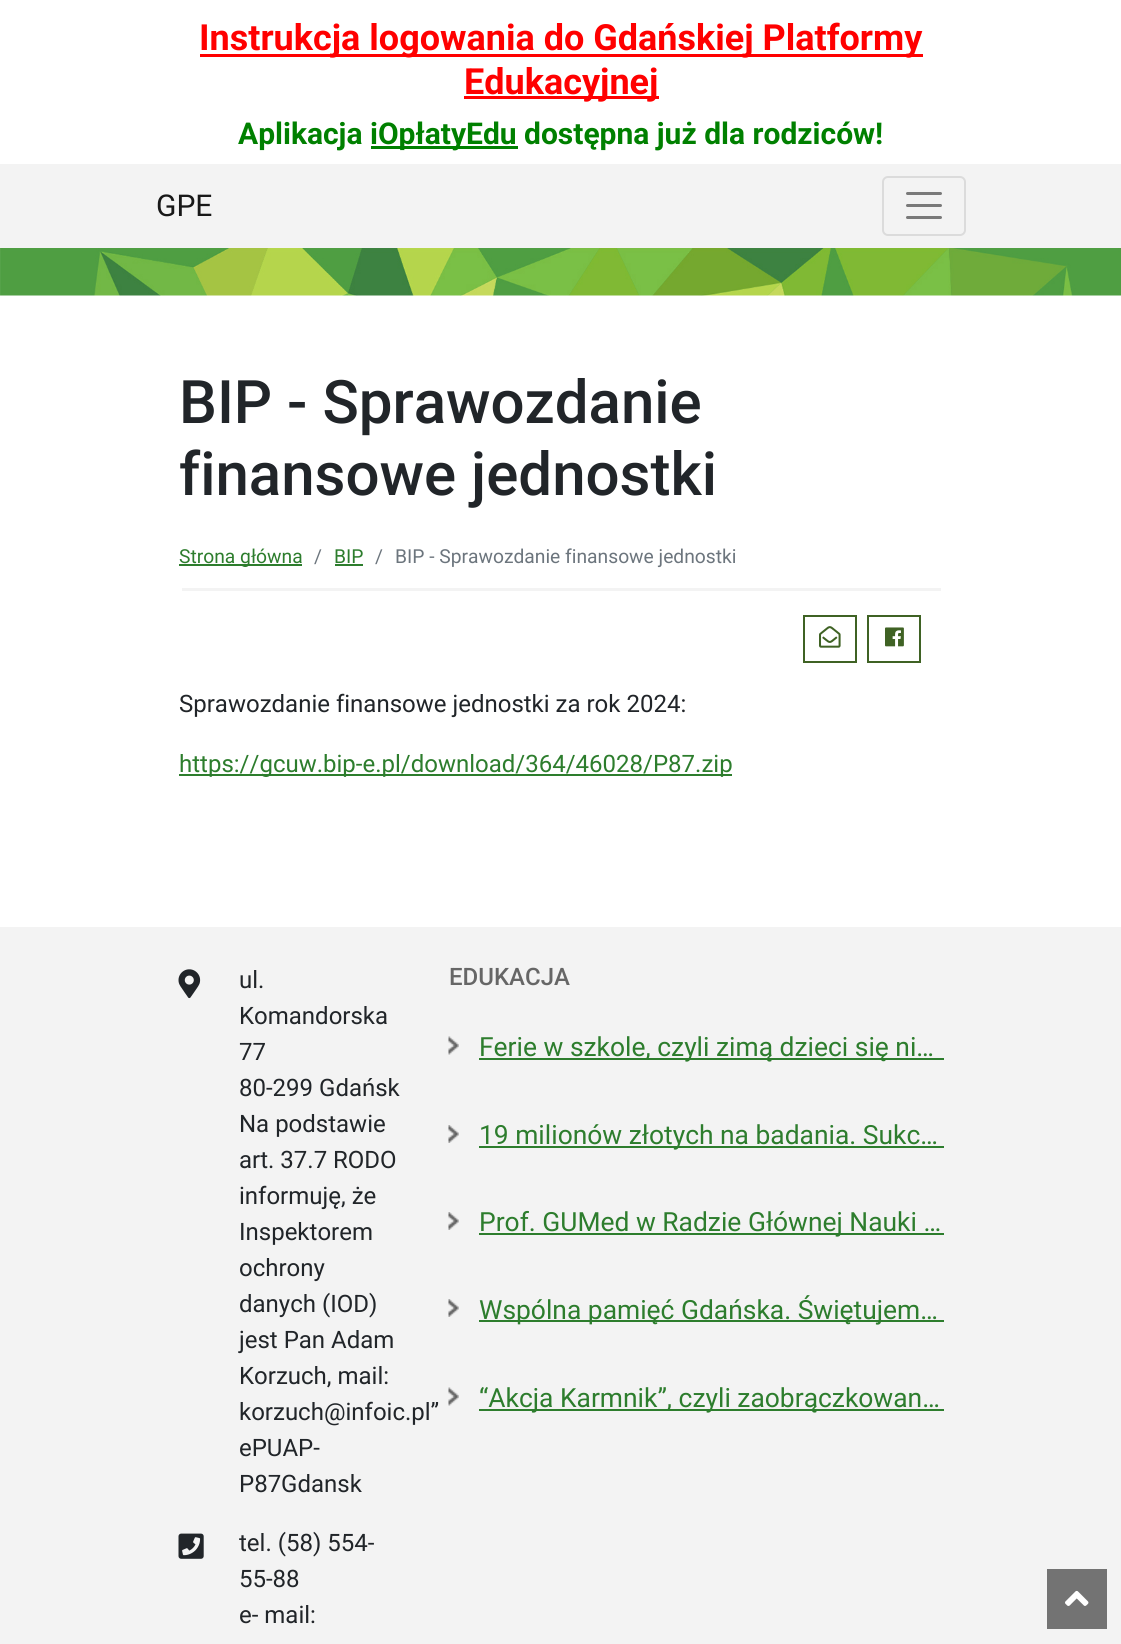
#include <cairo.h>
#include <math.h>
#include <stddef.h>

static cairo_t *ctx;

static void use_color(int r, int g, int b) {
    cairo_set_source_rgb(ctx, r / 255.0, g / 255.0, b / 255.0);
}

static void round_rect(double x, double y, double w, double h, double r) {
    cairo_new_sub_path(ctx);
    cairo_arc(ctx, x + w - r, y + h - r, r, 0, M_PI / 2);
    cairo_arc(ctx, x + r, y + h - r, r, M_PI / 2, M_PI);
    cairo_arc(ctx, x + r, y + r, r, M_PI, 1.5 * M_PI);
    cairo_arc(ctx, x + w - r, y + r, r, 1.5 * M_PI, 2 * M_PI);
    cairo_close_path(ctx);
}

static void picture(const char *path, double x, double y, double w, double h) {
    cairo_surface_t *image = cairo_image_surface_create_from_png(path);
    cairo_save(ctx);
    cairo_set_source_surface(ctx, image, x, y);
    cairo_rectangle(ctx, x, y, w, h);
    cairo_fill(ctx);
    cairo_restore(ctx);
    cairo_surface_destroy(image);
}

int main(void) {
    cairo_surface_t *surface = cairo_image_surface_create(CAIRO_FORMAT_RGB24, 1121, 1644);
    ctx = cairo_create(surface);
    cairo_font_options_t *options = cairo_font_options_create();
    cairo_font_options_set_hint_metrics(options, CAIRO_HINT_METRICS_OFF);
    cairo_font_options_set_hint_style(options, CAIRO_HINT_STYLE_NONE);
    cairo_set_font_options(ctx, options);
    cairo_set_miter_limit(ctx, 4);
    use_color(255, 255, 255);
    cairo_paint(ctx);
    use_color(255, 0, 0);
    cairo_rectangle(ctx, 200, 54, 723, 3);
    cairo_fill(ctx);
    cairo_select_font_face(ctx, "Roboto", CAIRO_FONT_SLANT_NORMAL, CAIRO_FONT_WEIGHT_BOLD);
    cairo_set_font_size(ctx, 36);
    cairo_move_to(ctx, 199, 50);
    cairo_show_text(ctx, "Instrukcja logowania do Gdańskiej Platformy");
    cairo_rectangle(ctx, 464, 96, 195, 3);
    cairo_fill(ctx);
    cairo_move_to(ctx, 464, 94);
    cairo_show_text(ctx, "Edukacyjnej");
    cairo_set_font_size(ctx, 30);
    use_color(0, 128, 0);
    cairo_move_to(ctx, 238, 144);
    cairo_show_text(ctx, "Aplikacja");
    cairo_rectangle(ctx, 371, 146, 147, 3);
    cairo_fill(ctx);
    cairo_move_to(ctx, 370, 144);
    cairo_show_text(ctx, "iOpłatyEdu dostępna już dla rodziców!");
    use_color(243, 243, 243);
    cairo_rectangle(ctx, 0, 164, 1121, 84);
    cairo_fill(ctx);
    cairo_select_font_face(ctx, "Roboto", CAIRO_FONT_SLANT_NORMAL, CAIRO_FONT_WEIGHT_NORMAL);
    use_color(24, 24, 24);
    cairo_move_to(ctx, 156, 216);
    cairo_show_text(ctx, "GPE");
    round_rect(883, 177, 82, 58, 5);
    use_color(219, 219, 219);
    cairo_stroke(ctx);
    cairo_new_path(ctx);
    cairo_move_to(ctx, 907.5, 193.5);
    cairo_line_to(ctx, 940.5, 193.5);
    cairo_move_to(ctx, 907.5, 205.5);
    cairo_line_to(ctx, 940.5, 205.5);
    cairo_move_to(ctx, 907.5, 217.5);
    cairo_line_to(ctx, 940.5, 217.5);
    use_color(122, 122, 122);
    cairo_set_line_width(ctx, 3);
    cairo_set_line_cap(ctx, CAIRO_LINE_CAP_ROUND);
    cairo_stroke(ctx);
    picture("img1.png", 0, 248, 1121, 48);
    cairo_select_font_face(ctx, "Roboto Medium", CAIRO_FONT_SLANT_NORMAL, CAIRO_FONT_WEIGHT_NORMAL);
    cairo_set_font_size(ctx, 60);
    use_color(33, 37, 41);
    cairo_move_to(ctx, 179, 423);
    cairo_show_text(ctx, "BIP - Sprawozdanie");
    cairo_move_to(ctx, 179, 495);
    cairo_show_text(ctx, "finansowe jednostki");
    use_color(243, 243, 243);
    cairo_rectangle(ctx, 182, 588, 759, 3);
    cairo_fill(ctx);
    use_color(45, 125, 45);
    cairo_rectangle(ctx, 179, 564, 123, 2);
    cairo_fill(ctx);
    cairo_select_font_face(ctx, "Roboto", CAIRO_FONT_SLANT_NORMAL, CAIRO_FONT_WEIGHT_NORMAL);
    cairo_set_font_size(ctx, 19.25);
    cairo_move_to(ctx, 179, 563);
    cairo_show_text(ctx, "Strona główna");
    use_color(108, 117, 125);
    cairo_move_to(ctx, 314, 563);
    cairo_show_text(ctx, "/");
    use_color(45, 125, 45);
    cairo_move_to(ctx, 334, 563);
    cairo_show_text(ctx, "BIP");
    cairo_rectangle(ctx, 335, 564, 28, 2);
    cairo_fill(ctx);
    use_color(108, 117, 125);
    cairo_move_to(ctx, 375, 563);
    cairo_show_text(ctx, "/");
    cairo_move_to(ctx, 395, 563);
    cairo_show_text(ctx, "BIP - Sprawozdanie finansowe jednostki");
    cairo_rectangle(ctx, 804, 616, 52, 46);
    use_color(63, 98, 36);
    cairo_set_line_width(ctx, 2);
    cairo_set_line_cap(ctx, CAIRO_LINE_CAP_BUTT);
    cairo_stroke(ctx);
    picture("img2.png", 819, 626, 22, 22);
    cairo_rectangle(ctx, 868, 616, 52, 46);
    cairo_stroke(ctx);
    picture("img3.png", 885, 627, 19, 20);
    cairo_set_font_size(ctx, 24);
    use_color(33, 37, 41);
    cairo_move_to(ctx, 179, 712);
    cairo_show_text(ctx, "Sprawozdanie finansowe jednostki za rok 2024:");
    use_color(45, 125, 45);
    cairo_rectangle(ctx, 179, 774, 553, 2);
    cairo_fill(ctx);
    cairo_move_to(ctx, 179, 772);
    cairo_show_text(ctx, "https://gcuw.bip-e.pl/download/364/46028/P87.zip");
    use_color(243, 243, 243);
    cairo_rectangle(ctx, 0, 927, 1121, 717);
    cairo_fill(ctx);
    picture("img4.png", 178, 969, 23, 30);
    use_color(33, 37, 41);
    cairo_move_to(ctx, 239, 988);
    cairo_show_text(ctx, "ul.");
    cairo_move_to(ctx, 239, 1024);
    cairo_show_text(ctx, "Komandorska");
    cairo_move_to(ctx, 239, 1060);
    cairo_show_text(ctx, "77");
    cairo_move_to(ctx, 239, 1096);
    cairo_show_text(ctx, "80-299 Gdańsk");
    cairo_move_to(ctx, 239, 1132);
    cairo_show_text(ctx, "Na podstawie");
    cairo_move_to(ctx, 239, 1168);
    cairo_show_text(ctx, "art. 37.7 RODO");
    cairo_move_to(ctx, 239, 1204);
    cairo_show_text(ctx, "informuję, że");
    cairo_move_to(ctx, 239, 1240);
    cairo_show_text(ctx, "Inspektorem");
    cairo_move_to(ctx, 239, 1276);
    cairo_show_text(ctx, "ochrony");
    cairo_move_to(ctx, 239, 1312);
    cairo_show_text(ctx, "danych (IOD)");
    cairo_move_to(ctx, 239, 1348);
    cairo_show_text(ctx, "jest Pan Adam");
    cairo_move_to(ctx, 239, 1384);
    cairo_show_text(ctx, "Korzuch, mail:");
    cairo_move_to(ctx, 239, 1420);
    cairo_show_text(ctx, "korzuch@infoic.pl”");
    cairo_move_to(ctx, 239, 1456);
    cairo_show_text(ctx, "ePUAP-");
    cairo_move_to(ctx, 239, 1492);
    cairo_show_text(ctx, "P87Gdansk");
    picture("img5.png", 178, 1533, 26, 26);
    cairo_move_to(ctx, 239, 1551);
    cairo_show_text(ctx, "tel. (58) 554-");
    cairo_move_to(ctx, 239, 1587);
    cairo_show_text(ctx, "55-88");
    cairo_move_to(ctx, 239, 1623);
    cairo_show_text(ctx, "e- mail:");
    cairo_select_font_face(ctx, "Roboto Medium", CAIRO_FONT_SLANT_NORMAL, CAIRO_FONT_WEIGHT_NORMAL);
    use_color(102, 102, 102);
    cairo_move_to(ctx, 449, 985);
    cairo_show_text(ctx, "EDUKACJA");
    picture("img6.png", 448, 1036, 11, 19);
    use_color(45, 125, 45);
    cairo_rectangle(ctx, 479, 1058, 465, 2);
    cairo_fill(ctx);
    cairo_select_font_face(ctx, "Roboto", CAIRO_FONT_SLANT_NORMAL, CAIRO_FONT_WEIGHT_NORMAL);
    cairo_set_font_size(ctx, 26.4);
    cairo_move_to(ctx, 479, 1056);
    cairo_show_text(ctx, "Ferie w szkole, czyli zimą dzieci się ni…");
    picture("img7.png", 448, 1125, 11, 18);
    cairo_rectangle(ctx, 479, 1146, 465, 2);
    cairo_fill(ctx);
    cairo_move_to(ctx, 479, 1144);
    cairo_show_text(ctx, "19 milionów złotych na badania. Sukc…");
    picture("img7.png", 448, 1212, 11, 18);
    cairo_rectangle(ctx, 479, 1233, 465, 2);
    cairo_fill(ctx);
    cairo_move_to(ctx, 479, 1231);
    cairo_show_text(ctx, "Prof. GUMed w Radzie Głównej Nauki …");
    picture("img7.png", 448, 1299, 11, 18);
    cairo_rectangle(ctx, 479, 1320, 465, 2);
    cairo_fill(ctx);
    cairo_move_to(ctx, 479, 1319);
    cairo_show_text(ctx, "Wspólna pamięć Gdańska. Świętujem…");
    picture("img6.png", 448, 1387, 11, 19);
    cairo_rectangle(ctx, 479, 1409, 465, 2);
    cairo_fill(ctx);
    cairo_move_to(ctx, 479, 1407);
    cairo_show_text(ctx, "“Akcja Karmnik”, czyli zaobrączkowan…");
    use_color(115, 115, 115);
    cairo_rectangle(ctx, 1047, 1569, 60, 60);
    cairo_fill(ctx);
    picture("img8.png", 1065, 1590, 24, 16);
    cairo_surface_write_to_png(surface, "result.png");
    cairo_font_options_destroy(options);
    cairo_destroy(ctx);
    cairo_surface_destroy(surface);
    return 0;
}
